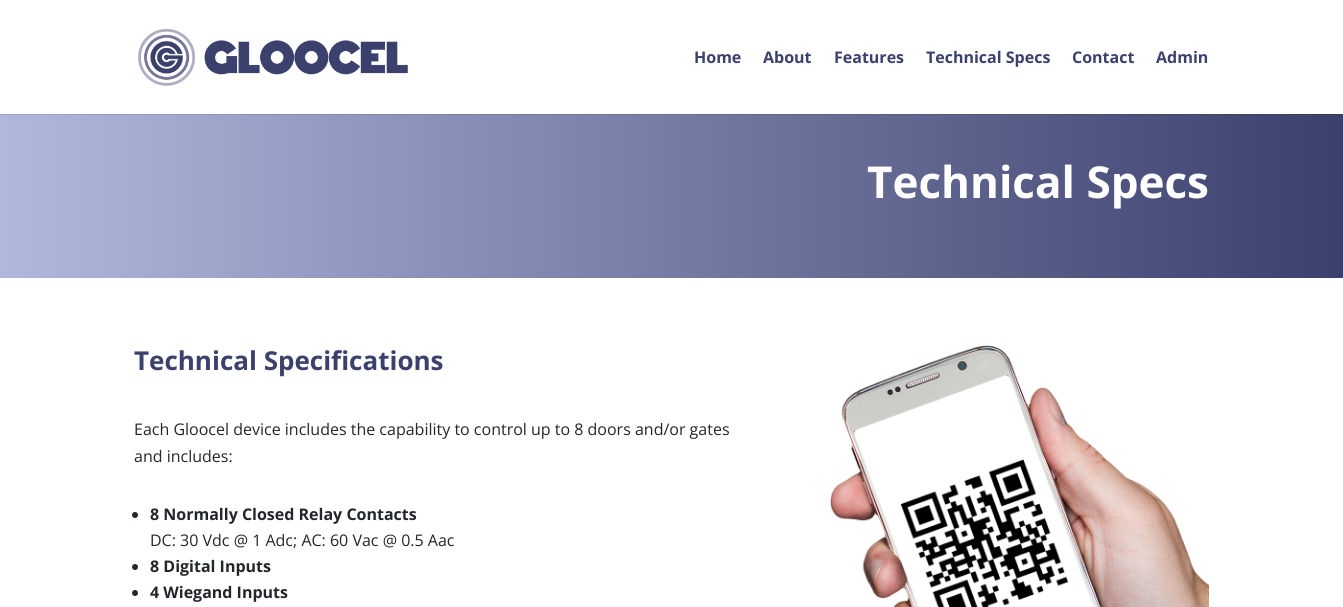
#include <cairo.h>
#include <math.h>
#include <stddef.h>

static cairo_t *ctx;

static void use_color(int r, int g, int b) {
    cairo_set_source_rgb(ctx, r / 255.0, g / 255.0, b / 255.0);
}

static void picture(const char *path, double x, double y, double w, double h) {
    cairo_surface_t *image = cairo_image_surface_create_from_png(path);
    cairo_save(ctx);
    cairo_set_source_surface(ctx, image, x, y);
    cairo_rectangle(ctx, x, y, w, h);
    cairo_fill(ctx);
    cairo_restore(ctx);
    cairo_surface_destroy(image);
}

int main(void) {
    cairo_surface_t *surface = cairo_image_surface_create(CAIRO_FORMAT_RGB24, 1343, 607);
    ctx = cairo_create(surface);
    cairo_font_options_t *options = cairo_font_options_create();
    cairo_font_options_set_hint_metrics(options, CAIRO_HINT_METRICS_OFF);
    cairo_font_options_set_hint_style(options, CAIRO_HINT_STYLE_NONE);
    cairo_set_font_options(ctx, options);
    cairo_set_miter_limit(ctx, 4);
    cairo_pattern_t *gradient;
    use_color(255, 255, 255);
    cairo_paint(ctx);
    picture("img1.png", 138, 29, 270, 57);
    cairo_select_font_face(ctx, "Open Sans", CAIRO_FONT_SLANT_NORMAL, CAIRO_FONT_WEIGHT_BOLD);
    cairo_set_font_size(ctx, 16);
    use_color(59, 64, 109);
    cairo_move_to(ctx, 694, 63);
    cairo_show_text(ctx, "Home");
    cairo_move_to(ctx, 763, 63);
    cairo_show_text(ctx, "About");
    cairo_move_to(ctx, 834, 63);
    cairo_show_text(ctx, "Features");
    cairo_move_to(ctx, 926, 63);
    cairo_show_text(ctx, "Technical Specs");
    cairo_move_to(ctx, 1072, 63);
    cairo_show_text(ctx, "Contact");
    cairo_move_to(ctx, 1156, 63);
    cairo_show_text(ctx, "Admin");
    gradient = cairo_pattern_create_linear(1343, 179, 0, 179);
    cairo_pattern_add_color_stop_rgba(gradient, 0, 0.231, 0.251, 0.427, 1);
    cairo_pattern_add_color_stop_rgba(gradient, 1, 0.694, 0.718, 0.863, 1);
    cairo_set_source(ctx, gradient);
    cairo_pattern_destroy(gradient);
    cairo_rectangle(ctx, 0, 115, 1343, 163);
    cairo_fill(ctx);
    gradient = cairo_pattern_create_linear(1343, 179, 0, 179);
    cairo_pattern_add_color_stop_rgba(gradient, 0, 0.208, 0.227, 0.384, 1);
    cairo_pattern_add_color_stop_rgba(gradient, 1, 0.624, 0.647, 0.776, 1);
    cairo_set_source(ctx, gradient);
    cairo_pattern_destroy(gradient);
    cairo_rectangle(ctx, 0, 114, 1343, 1);
    cairo_fill(ctx);
    cairo_set_font_size(ctx, 44);
    use_color(255, 255, 255);
    cairo_move_to(ctx, 867, 198);
    cairo_show_text(ctx, "Technical Specs");
    cairo_set_font_size(ctx, 26);
    use_color(59, 64, 109);
    cairo_move_to(ctx, 134, 370);
    cairo_show_text(ctx, "Technical Specifications");
    cairo_select_font_face(ctx, "Open Sans", CAIRO_FONT_SLANT_NORMAL, CAIRO_FONT_WEIGHT_NORMAL);
    cairo_set_font_size(ctx, 16);
    use_color(35, 39, 43);
    cairo_move_to(ctx, 134, 435);
    cairo_show_text(ctx, "Each Gloocel device includes the capability to control up to 8 doors and/or gates");
    cairo_move_to(ctx, 134, 462);
    cairo_show_text(ctx, "and includes:");
    cairo_new_path(ctx);
    cairo_arc(ctx, 135, 515, 3, 0, 2 * M_PI);
    cairo_fill(ctx);
    cairo_select_font_face(ctx, "Open Sans", CAIRO_FONT_SLANT_NORMAL, CAIRO_FONT_WEIGHT_BOLD);
    cairo_move_to(ctx, 150, 520);
    cairo_show_text(ctx, "8 Normally Closed Relay Contacts");
    cairo_select_font_face(ctx, "Open Sans", CAIRO_FONT_SLANT_NORMAL, CAIRO_FONT_WEIGHT_NORMAL);
    cairo_move_to(ctx, 150, 546);
    cairo_show_text(ctx, "DC: 30 Vdc @ 1 Adc; AC: 60 Vac @ 0.5 Aac");
    cairo_new_path(ctx);
    cairo_arc(ctx, 135, 567, 3, 0, 2 * M_PI);
    cairo_fill(ctx);
    cairo_select_font_face(ctx, "Open Sans", CAIRO_FONT_SLANT_NORMAL, CAIRO_FONT_WEIGHT_BOLD);
    cairo_move_to(ctx, 150, 572);
    cairo_show_text(ctx, "8 Digital Inputs");
    cairo_new_path(ctx);
    cairo_arc(ctx, 135, 593, 3, 0, 2 * M_PI);
    cairo_fill(ctx);
    cairo_move_to(ctx, 150, 598);
    cairo_show_text(ctx, "4 Wiegand Inputs");
    picture("img2.png", 830, 345, 379, 262);
    cairo_surface_write_to_png(surface, "result.png");
    cairo_font_options_destroy(options);
    cairo_destroy(ctx);
    cairo_surface_destroy(surface);
    return 0;
}
